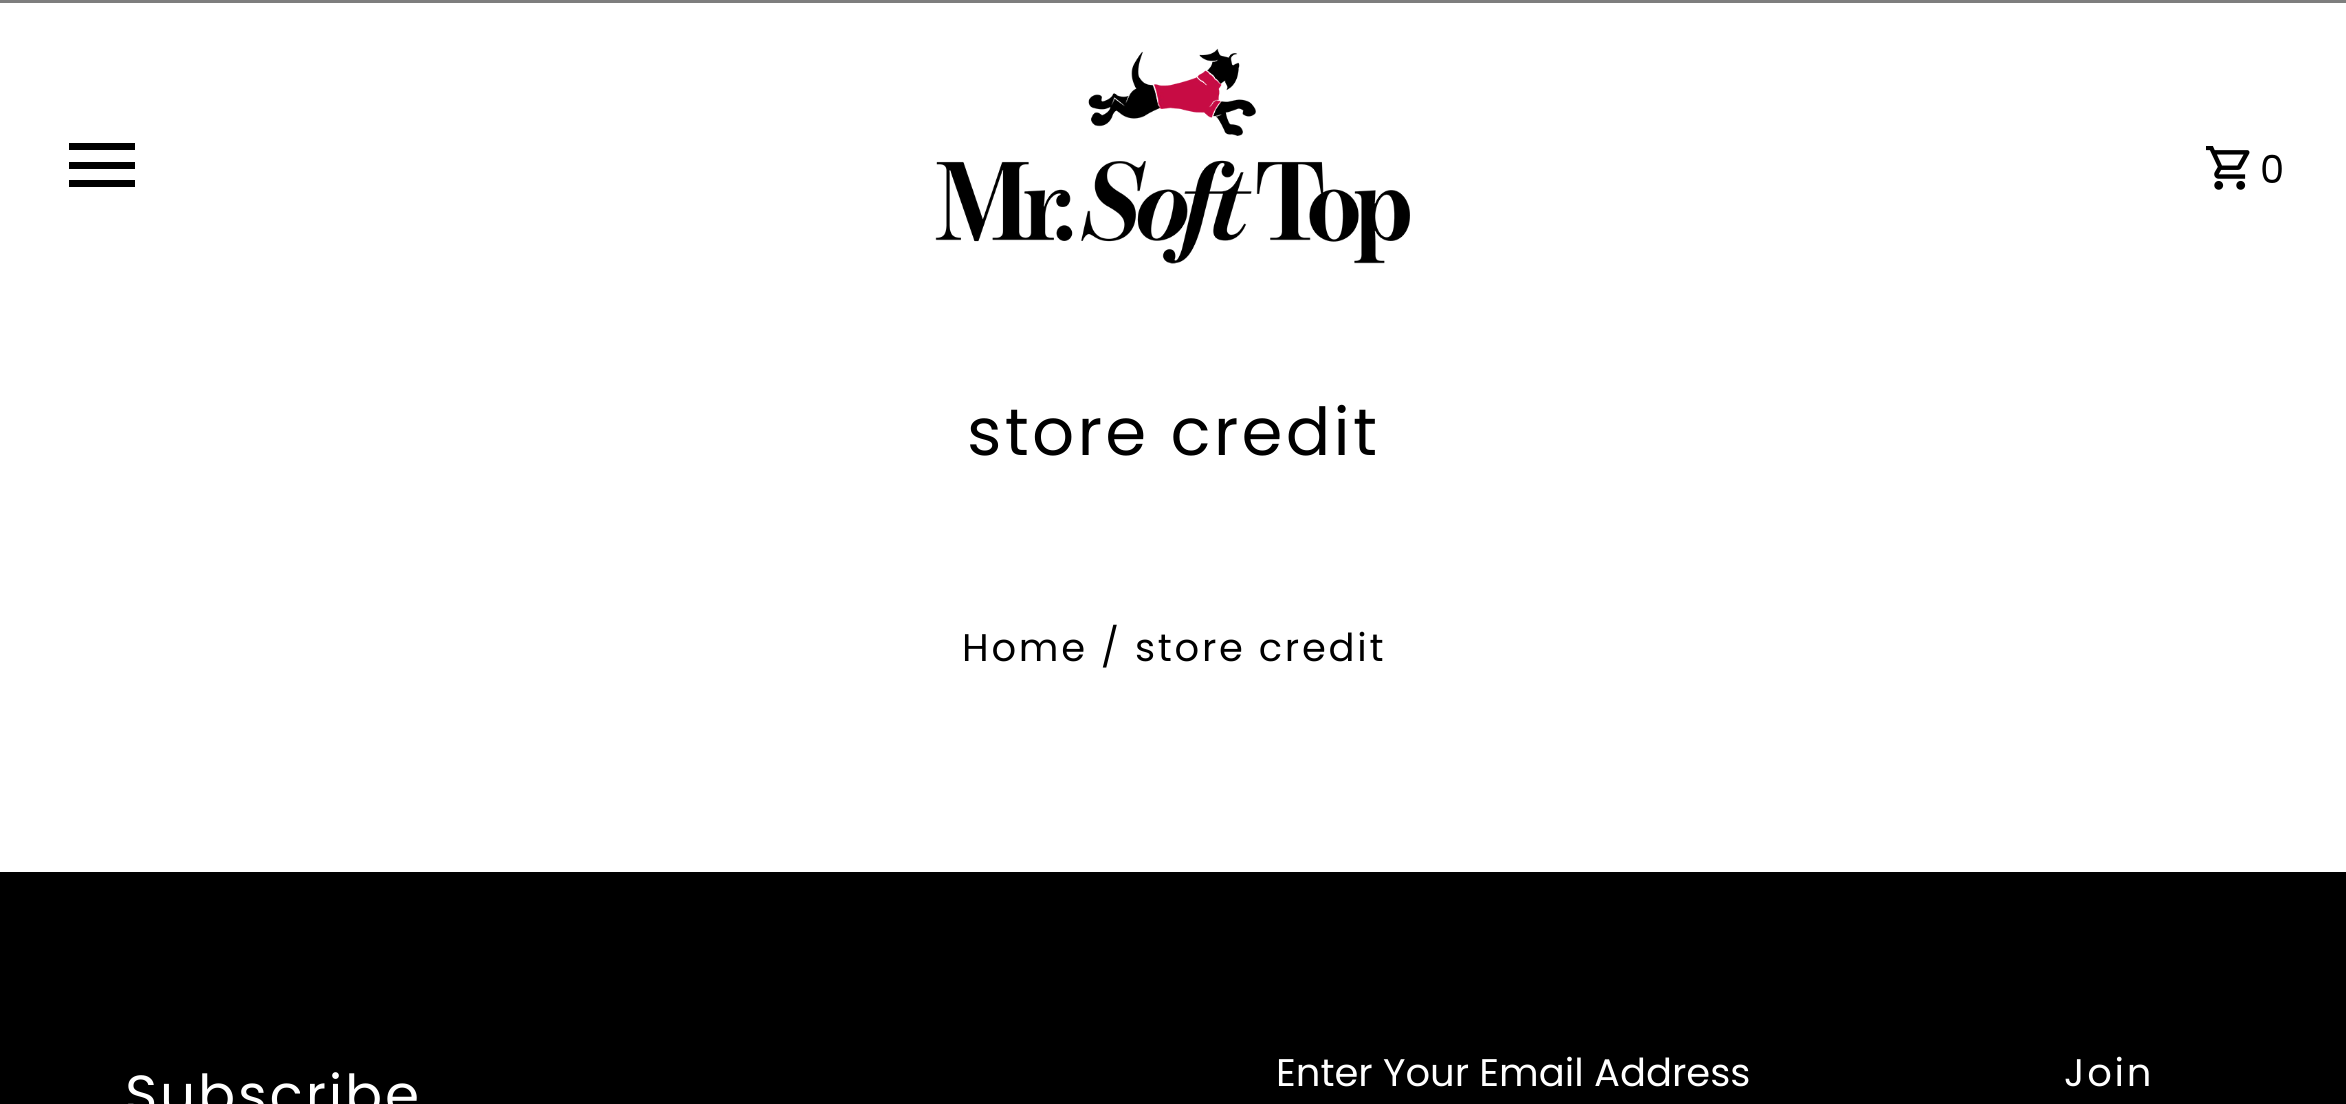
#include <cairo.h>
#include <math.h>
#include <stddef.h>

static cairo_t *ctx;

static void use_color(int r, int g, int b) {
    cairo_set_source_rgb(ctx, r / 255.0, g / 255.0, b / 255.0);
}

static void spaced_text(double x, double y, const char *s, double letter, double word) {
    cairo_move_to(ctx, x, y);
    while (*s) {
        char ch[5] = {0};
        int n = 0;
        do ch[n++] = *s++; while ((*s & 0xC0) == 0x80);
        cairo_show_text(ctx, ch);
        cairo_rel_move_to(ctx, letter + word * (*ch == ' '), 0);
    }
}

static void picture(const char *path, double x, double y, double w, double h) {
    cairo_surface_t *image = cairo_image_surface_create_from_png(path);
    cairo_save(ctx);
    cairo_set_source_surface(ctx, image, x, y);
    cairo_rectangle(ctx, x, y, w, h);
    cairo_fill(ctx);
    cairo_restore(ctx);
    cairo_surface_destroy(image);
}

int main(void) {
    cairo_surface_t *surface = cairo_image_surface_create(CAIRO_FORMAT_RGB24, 2346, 1104);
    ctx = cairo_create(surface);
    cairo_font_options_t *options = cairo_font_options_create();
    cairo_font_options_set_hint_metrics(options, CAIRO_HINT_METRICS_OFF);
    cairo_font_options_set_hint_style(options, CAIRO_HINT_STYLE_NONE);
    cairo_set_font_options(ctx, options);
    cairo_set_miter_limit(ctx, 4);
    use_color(255, 255, 255);
    cairo_paint(ctx);
    use_color(126, 126, 126);
    cairo_rectangle(ctx, 0, 0, 2346, 3);
    cairo_fill(ctx);
    use_color(0, 0, 0);
    cairo_rectangle(ctx, 69, 180, 66, 7);
    cairo_fill(ctx);
    cairo_rectangle(ctx, 69, 162, 66, 7);
    cairo_fill(ctx);
    cairo_rectangle(ctx, 69, 143, 66, 7);
    cairo_fill(ctx);
    picture("img1.png", 935, 48, 475, 216);
    picture("img2.png", 2206, 146, 44, 44);
    cairo_select_font_face(ctx, "Poppins", CAIRO_FONT_SLANT_NORMAL, CAIRO_FONT_WEIGHT_NORMAL);
    cairo_set_font_size(ctx, 38.5);
    cairo_move_to(ctx, 2260, 183);
    cairo_show_text(ctx, "0");
    cairo_set_font_size(ctx, 66);
    spaced_text(967, 455, "store credit", 3.25, 0);
    cairo_set_font_size(ctx, 38.5);
    spaced_text(962, 661, "Home / store credit", 2.75, 0);
    cairo_rectangle(ctx, 0, 872, 2346, 232);
    cairo_fill(ctx);
    cairo_set_font_size(ctx, 55);
    use_color(255, 255, 255);
    spaced_text(125, 1114, "Subscribe", 2.75, 0);
    cairo_set_font_size(ctx, 38.5);
    cairo_move_to(ctx, 1276, 1086);
    cairo_show_text(ctx, "Enter Your Email Address");
    spaced_text(2064, 1086, "Join", 2.75, 0);
    cairo_surface_write_to_png(surface, "result.png");
    cairo_font_options_destroy(options);
    cairo_destroy(ctx);
    cairo_surface_destroy(surface);
    return 0;
}
